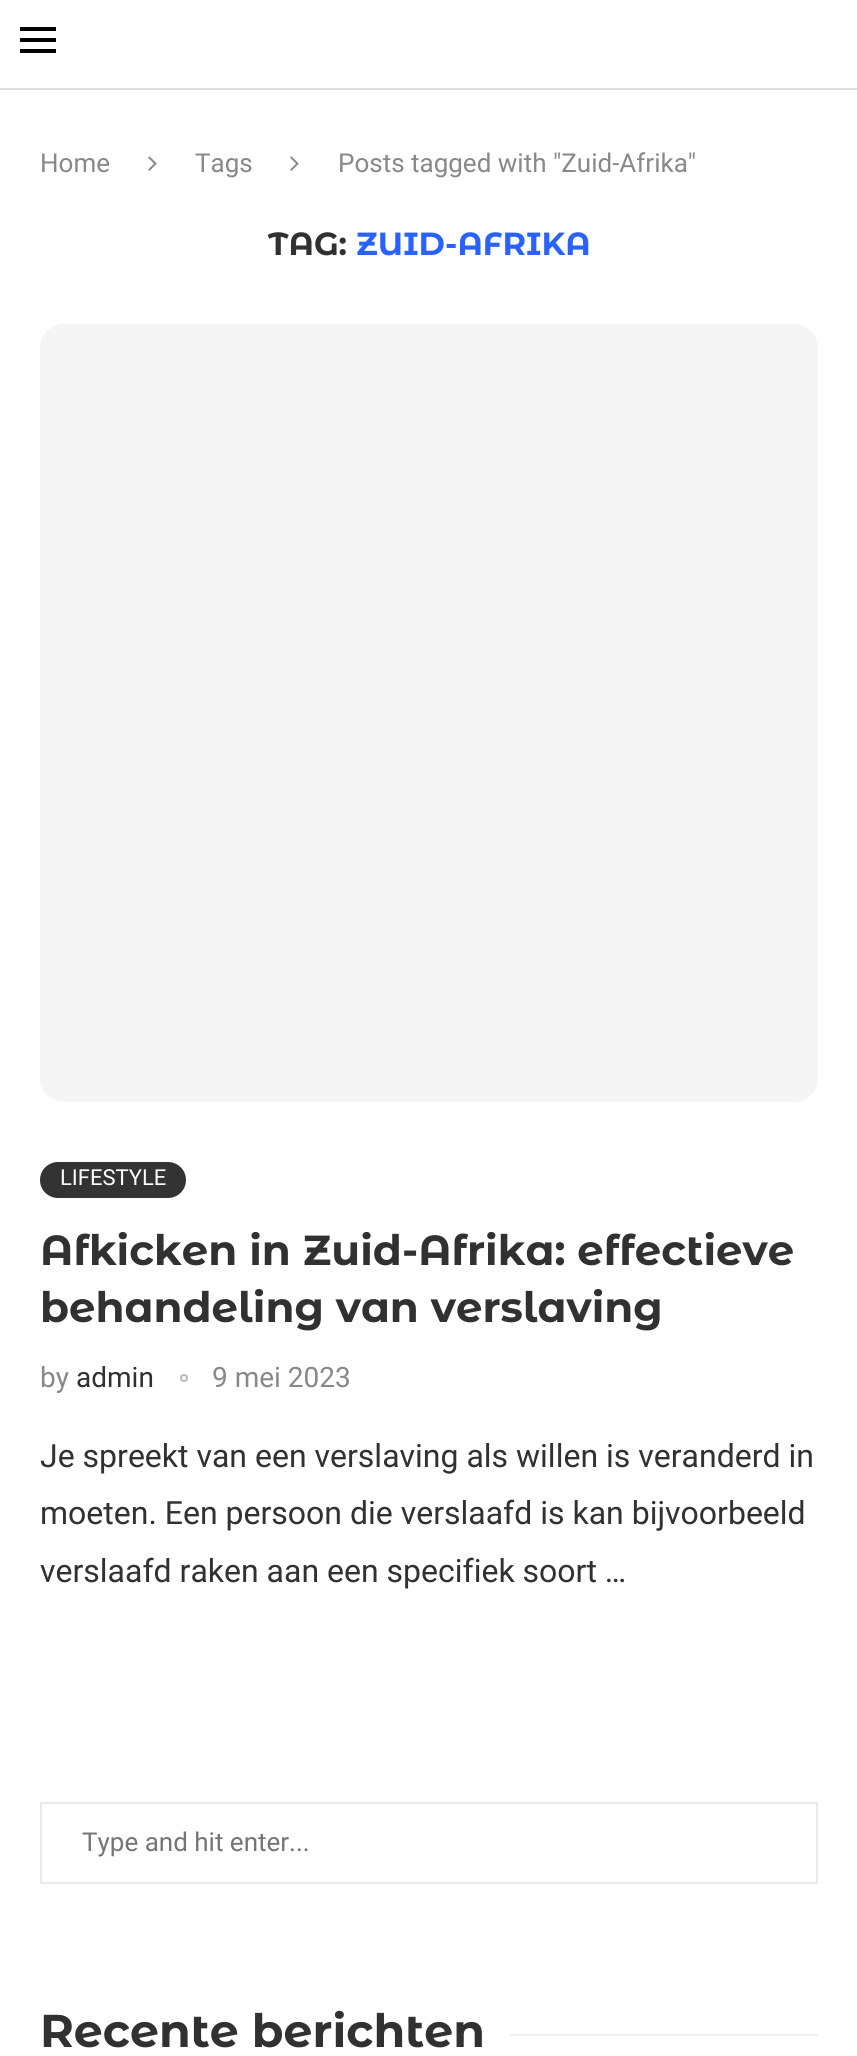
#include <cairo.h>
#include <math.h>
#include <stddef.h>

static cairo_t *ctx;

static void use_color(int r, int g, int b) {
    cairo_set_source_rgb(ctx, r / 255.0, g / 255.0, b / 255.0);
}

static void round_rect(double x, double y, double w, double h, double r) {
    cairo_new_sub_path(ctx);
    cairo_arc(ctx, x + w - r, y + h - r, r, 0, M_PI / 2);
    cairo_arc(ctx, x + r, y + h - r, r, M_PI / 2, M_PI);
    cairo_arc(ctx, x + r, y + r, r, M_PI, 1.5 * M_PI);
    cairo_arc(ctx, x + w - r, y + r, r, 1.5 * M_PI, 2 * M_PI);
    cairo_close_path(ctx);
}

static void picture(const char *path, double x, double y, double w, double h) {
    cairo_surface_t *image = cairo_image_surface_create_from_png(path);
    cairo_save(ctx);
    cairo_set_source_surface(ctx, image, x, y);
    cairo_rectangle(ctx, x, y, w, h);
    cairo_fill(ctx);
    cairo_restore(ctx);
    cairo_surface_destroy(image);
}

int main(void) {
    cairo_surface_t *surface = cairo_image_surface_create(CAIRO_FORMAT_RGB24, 857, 2056);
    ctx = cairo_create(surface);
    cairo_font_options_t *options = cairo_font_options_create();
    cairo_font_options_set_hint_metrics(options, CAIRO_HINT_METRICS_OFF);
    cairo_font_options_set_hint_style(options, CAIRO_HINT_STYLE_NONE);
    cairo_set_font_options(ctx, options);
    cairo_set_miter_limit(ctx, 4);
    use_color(255, 255, 255);
    cairo_paint(ctx);
    use_color(222, 222, 222);
    cairo_rectangle(ctx, 0, 88, 857, 2);
    cairo_fill(ctx);
    use_color(0, 0, 0);
    cairo_rectangle(ctx, 20, 27, 36, 4);
    cairo_fill(ctx);
    cairo_rectangle(ctx, 20, 38, 36, 4);
    cairo_fill(ctx);
    cairo_rectangle(ctx, 20, 49, 36, 4);
    cairo_fill(ctx);
    cairo_select_font_face(ctx, "Roboto", CAIRO_FONT_SLANT_NORMAL, CAIRO_FONT_WEIGHT_NORMAL);
    cairo_set_font_size(ctx, 26);
    use_color(136, 136, 136);
    cairo_move_to(ctx, 40, 172);
    cairo_show_text(ctx, "Home");
    picture("img1.png", 148, 156, 9, 15);
    cairo_move_to(ctx, 195, 172);
    cairo_show_text(ctx, "Tags");
    picture("img1.png", 290, 156, 9, 15);
    cairo_move_to(ctx, 338, 172);
    cairo_show_text(ctx, "Posts tagged with \"Zuid-Afrika\"");
    cairo_select_font_face(ctx, "Montserrat Alternates", CAIRO_FONT_SLANT_NORMAL, CAIRO_FONT_WEIGHT_BOLD);
    cairo_set_font_size(ctx, 32);
    use_color(49, 49, 49);
    cairo_move_to(ctx, 268, 255);
    cairo_show_text(ctx, "TAG:");
    use_color(41, 98, 255);
    cairo_move_to(ctx, 356, 255);
    cairo_show_text(ctx, "ZUID-AFRIKA");
    use_color(245, 245, 245);
    round_rect(40, 324, 778, 778, 24);
    cairo_fill(ctx);
    use_color(51, 51, 51);
    round_rect(40, 1162, 146, 36, 18);
    cairo_fill(ctx);
    cairo_select_font_face(ctx, "Roboto", CAIRO_FONT_SLANT_NORMAL, CAIRO_FONT_WEIGHT_NORMAL);
    cairo_set_font_size(ctx, 22);
    use_color(255, 255, 255);
    cairo_move_to(ctx, 60, 1185);
    cairo_show_text(ctx, "LIFESTYLE");
    cairo_select_font_face(ctx, "Montserrat Alternates", CAIRO_FONT_SLANT_NORMAL, CAIRO_FONT_WEIGHT_BOLD);
    cairo_set_font_size(ctx, 42);
    use_color(49, 49, 49);
    cairo_move_to(ctx, 40, 1265);
    cairo_show_text(ctx, "Afkicken in Zuid-Afrika: effectieve");
    cairo_move_to(ctx, 40, 1322);
    cairo_show_text(ctx, "behandeling van verslaving");
    cairo_select_font_face(ctx, "Roboto", CAIRO_FONT_SLANT_NORMAL, CAIRO_FONT_WEIGHT_NORMAL);
    cairo_set_font_size(ctx, 28);
    use_color(136, 136, 136);
    cairo_move_to(ctx, 40, 1387);
    cairo_show_text(ctx, "by");
    use_color(49, 49, 49);
    cairo_move_to(ctx, 76, 1387);
    cairo_show_text(ctx, "admin");
    cairo_new_path(ctx);
    cairo_arc(ctx, 184, 1378, 3, 0, 2 * M_PI);
    use_color(184, 184, 184);
    cairo_stroke(ctx);
    use_color(136, 136, 136);
    cairo_move_to(ctx, 212, 1387);
    cairo_show_text(ctx, "9 mei 2023");
    cairo_set_font_size(ctx, 32);
    use_color(49, 49, 49);
    cairo_move_to(ctx, 40, 1467);
    cairo_show_text(ctx, "Je spreekt van een verslaving als willen is veranderd in");
    cairo_move_to(ctx, 40, 1524);
    cairo_show_text(ctx, "moeten. Een persoon die verslaafd is kan bijvoorbeeld");
    cairo_move_to(ctx, 40, 1582);
    cairo_show_text(ctx, "verslaafd raken aan een specifiek soort …");
    cairo_rectangle(ctx, 41, 1803, 776, 80);
    use_color(233, 233, 233);
    cairo_stroke(ctx);
    cairo_set_font_size(ctx, 26);
    use_color(117, 117, 117);
    cairo_move_to(ctx, 82, 1851);
    cairo_show_text(ctx, "Type and hit enter...");
    cairo_select_font_face(ctx, "Montserrat Alternates", CAIRO_FONT_SLANT_NORMAL, CAIRO_FONT_WEIGHT_BOLD);
    cairo_set_font_size(ctx, 46);
    use_color(49, 49, 49);
    cairo_move_to(ctx, 40, 2047);
    cairo_show_text(ctx, "Recente berichten");
    use_color(239, 239, 239);
    cairo_rectangle(ctx, 510, 2034, 308, 2);
    cairo_fill(ctx);
    cairo_surface_write_to_png(surface, "result.png");
    cairo_font_options_destroy(options);
    cairo_destroy(ctx);
    cairo_surface_destroy(surface);
    return 0;
}
